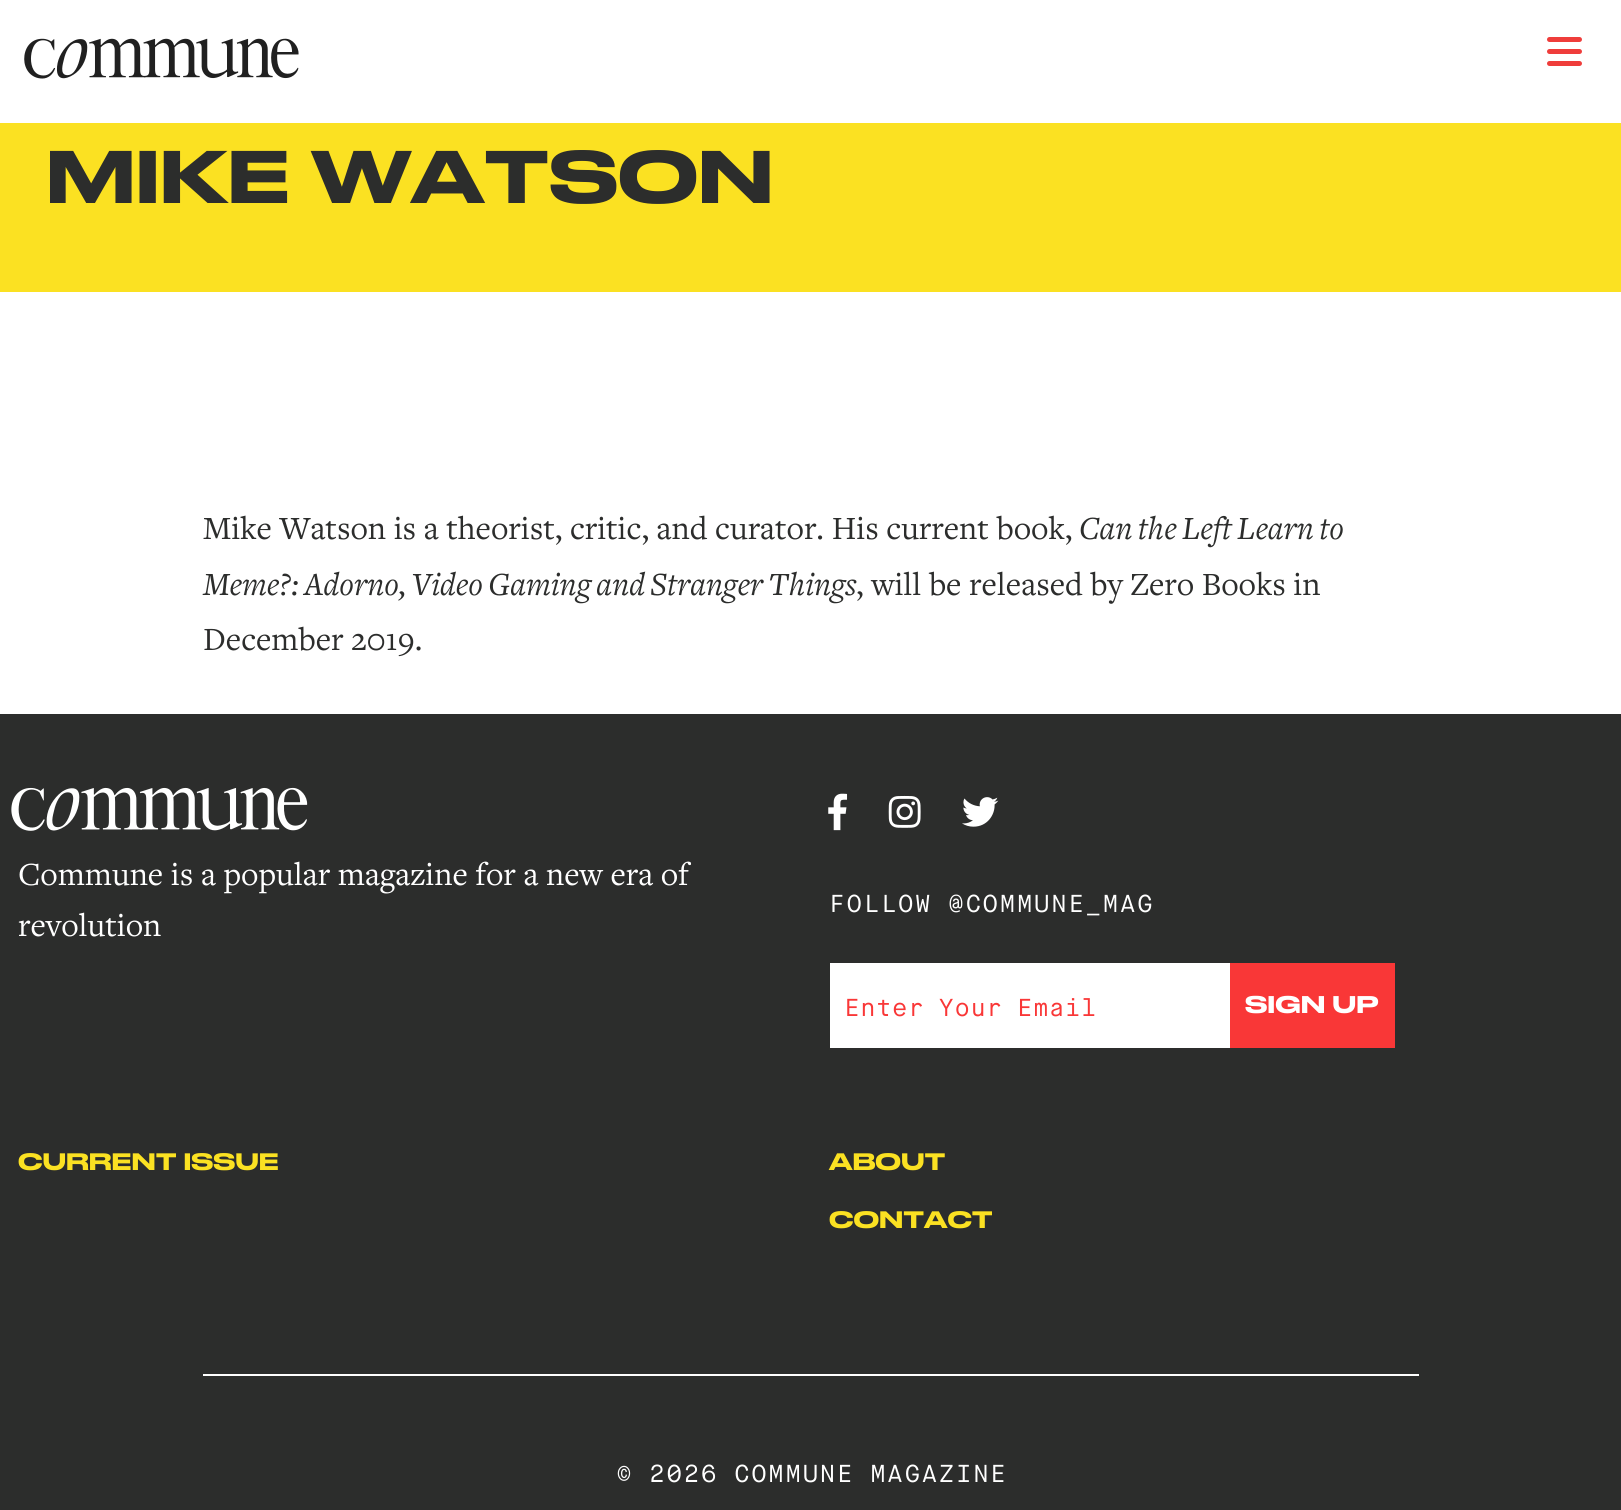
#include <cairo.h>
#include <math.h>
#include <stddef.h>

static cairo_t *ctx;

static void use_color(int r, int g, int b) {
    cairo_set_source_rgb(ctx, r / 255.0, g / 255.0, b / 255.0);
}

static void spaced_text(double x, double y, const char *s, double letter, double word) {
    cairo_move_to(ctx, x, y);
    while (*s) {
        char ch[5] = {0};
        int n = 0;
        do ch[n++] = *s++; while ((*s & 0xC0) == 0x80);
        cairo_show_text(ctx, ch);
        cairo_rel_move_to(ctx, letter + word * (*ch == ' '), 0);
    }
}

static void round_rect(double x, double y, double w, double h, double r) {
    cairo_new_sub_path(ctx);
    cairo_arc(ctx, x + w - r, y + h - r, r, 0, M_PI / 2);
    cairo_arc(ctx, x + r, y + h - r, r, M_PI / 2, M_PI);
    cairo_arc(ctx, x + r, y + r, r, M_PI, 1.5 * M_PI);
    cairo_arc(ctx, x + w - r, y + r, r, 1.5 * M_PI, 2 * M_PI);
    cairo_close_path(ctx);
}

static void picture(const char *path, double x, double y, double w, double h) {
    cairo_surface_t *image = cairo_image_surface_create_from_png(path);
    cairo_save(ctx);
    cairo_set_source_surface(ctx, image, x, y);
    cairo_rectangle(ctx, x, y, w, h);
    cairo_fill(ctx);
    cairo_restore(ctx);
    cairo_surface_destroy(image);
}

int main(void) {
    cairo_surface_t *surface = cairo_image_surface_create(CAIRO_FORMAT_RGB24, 1621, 1510);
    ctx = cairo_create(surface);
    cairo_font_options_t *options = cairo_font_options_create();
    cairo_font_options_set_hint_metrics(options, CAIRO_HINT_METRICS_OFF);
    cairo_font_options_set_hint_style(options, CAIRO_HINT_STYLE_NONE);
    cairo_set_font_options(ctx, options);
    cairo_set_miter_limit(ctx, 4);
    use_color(255, 255, 255);
    cairo_paint(ctx);
    picture("img1.png", 24, 38, 275, 41);
    use_color(239, 61, 59);
    round_rect(1547, 49, 35, 5, 2.5);
    cairo_fill(ctx);
    round_rect(1547, 37, 35, 5, 2.5);
    cairo_fill(ctx);
    round_rect(1547, 61, 35, 5, 2.5);
    cairo_fill(ctx);
    use_color(251, 225, 34);
    cairo_rectangle(ctx, 0, 123, 1621, 169);
    cairo_fill(ctx);
    cairo_select_font_face(ctx, "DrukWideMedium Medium", CAIRO_FONT_SLANT_NORMAL, CAIRO_FONT_WEIGHT_NORMAL);
    cairo_set_font_size(ctx, 70);
    use_color(44, 45, 44);
    cairo_move_to(ctx, 46, 203);
    cairo_show_text(ctx, "MIKE WATSON");
    cairo_select_font_face(ctx, "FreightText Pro", CAIRO_FONT_SLANT_NORMAL, CAIRO_FONT_WEIGHT_NORMAL);
    cairo_set_font_size(ctx, 33.6);
    cairo_move_to(ctx, 203, 539);
    cairo_show_text(ctx, "Mike Watson is a theorist, critic, and curator. His current book,");
    cairo_select_font_face(ctx, "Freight", CAIRO_FONT_SLANT_ITALIC, CAIRO_FONT_WEIGHT_NORMAL);
    cairo_move_to(ctx, 1079, 539);
    cairo_show_text(ctx, "Can the Left Learn to");
    cairo_move_to(ctx, 203, 595);
    cairo_show_text(ctx, "Meme?: Adorno, Video Gaming and Stranger Things");
    cairo_select_font_face(ctx, "FreightText Pro", CAIRO_FONT_SLANT_NORMAL, CAIRO_FONT_WEIGHT_NORMAL);
    cairo_move_to(ctx, 856, 595);
    cairo_show_text(ctx, ", will be released by Zero Books in");
    cairo_move_to(ctx, 203, 650);
    cairo_show_text(ctx, "December 2019.");
    cairo_rectangle(ctx, 0, 714, 1621, 796);
    cairo_fill(ctx);
    picture("img2.png", 11, 787, 297, 44);
    use_color(255, 255, 255);
    cairo_move_to(ctx, 18, 885);
    cairo_show_text(ctx, "Commune is a popular magazine for a new era of");
    cairo_move_to(ctx, 18, 936);
    cairo_show_text(ctx, "revolution");
    picture("img3.png", 828, 793, 20, 38);
    picture("img4.png", 888, 795, 33, 33);
    picture("img5.png", 962, 797, 37, 30);
    cairo_select_font_face(ctx, "Maison Neue", CAIRO_FONT_SLANT_NORMAL, CAIRO_FONT_WEIGHT_NORMAL);
    cairo_set_font_size(ctx, 24.5);
    spaced_text(829, 912, "FOLLOW @COMMUNE_MAG", 1.25, 0);
    cairo_rectangle(ctx, 831, 964, 400, 83);
    cairo_fill_preserve(ctx);
    cairo_stroke(ctx);
    use_color(249, 55, 55);
    cairo_move_to(ctx, 844, 1016);
    cairo_show_text(ctx, "Enter Your Email");
    cairo_rectangle(ctx, 1230, 963, 165, 85);
    cairo_fill(ctx);
    cairo_select_font_face(ctx, "DrukWideMedium Medium", CAIRO_FONT_SLANT_NORMAL, CAIRO_FONT_WEIGHT_NORMAL);
    cairo_set_font_size(ctx, 22.75);
    use_color(255, 255, 255);
    cairo_move_to(ctx, 1245, 1013);
    cairo_show_text(ctx, "SIGN UP");
    cairo_set_font_size(ctx, 22.4);
    use_color(251, 225, 34);
    cairo_move_to(ctx, 18, 1170);
    cairo_show_text(ctx, "CURRENT ISSUE");
    cairo_move_to(ctx, 829, 1170);
    cairo_show_text(ctx, "ABOUT");
    cairo_move_to(ctx, 829, 1228);
    cairo_show_text(ctx, "CONTACT");
    use_color(255, 255, 255);
    cairo_rectangle(ctx, 203, 1374, 1216, 2);
    cairo_fill(ctx);
    cairo_select_font_face(ctx, "Maison Neue", CAIRO_FONT_SLANT_NORMAL, CAIRO_FONT_WEIGHT_NORMAL);
    cairo_set_font_size(ctx, 24.5);
    spaced_text(616, 1482, "© 2026 COMMUNE MAGAZINE", 1.25, 0);
    cairo_surface_write_to_png(surface, "result.png");
    cairo_font_options_destroy(options);
    cairo_destroy(ctx);
    cairo_surface_destroy(surface);
    return 0;
}
